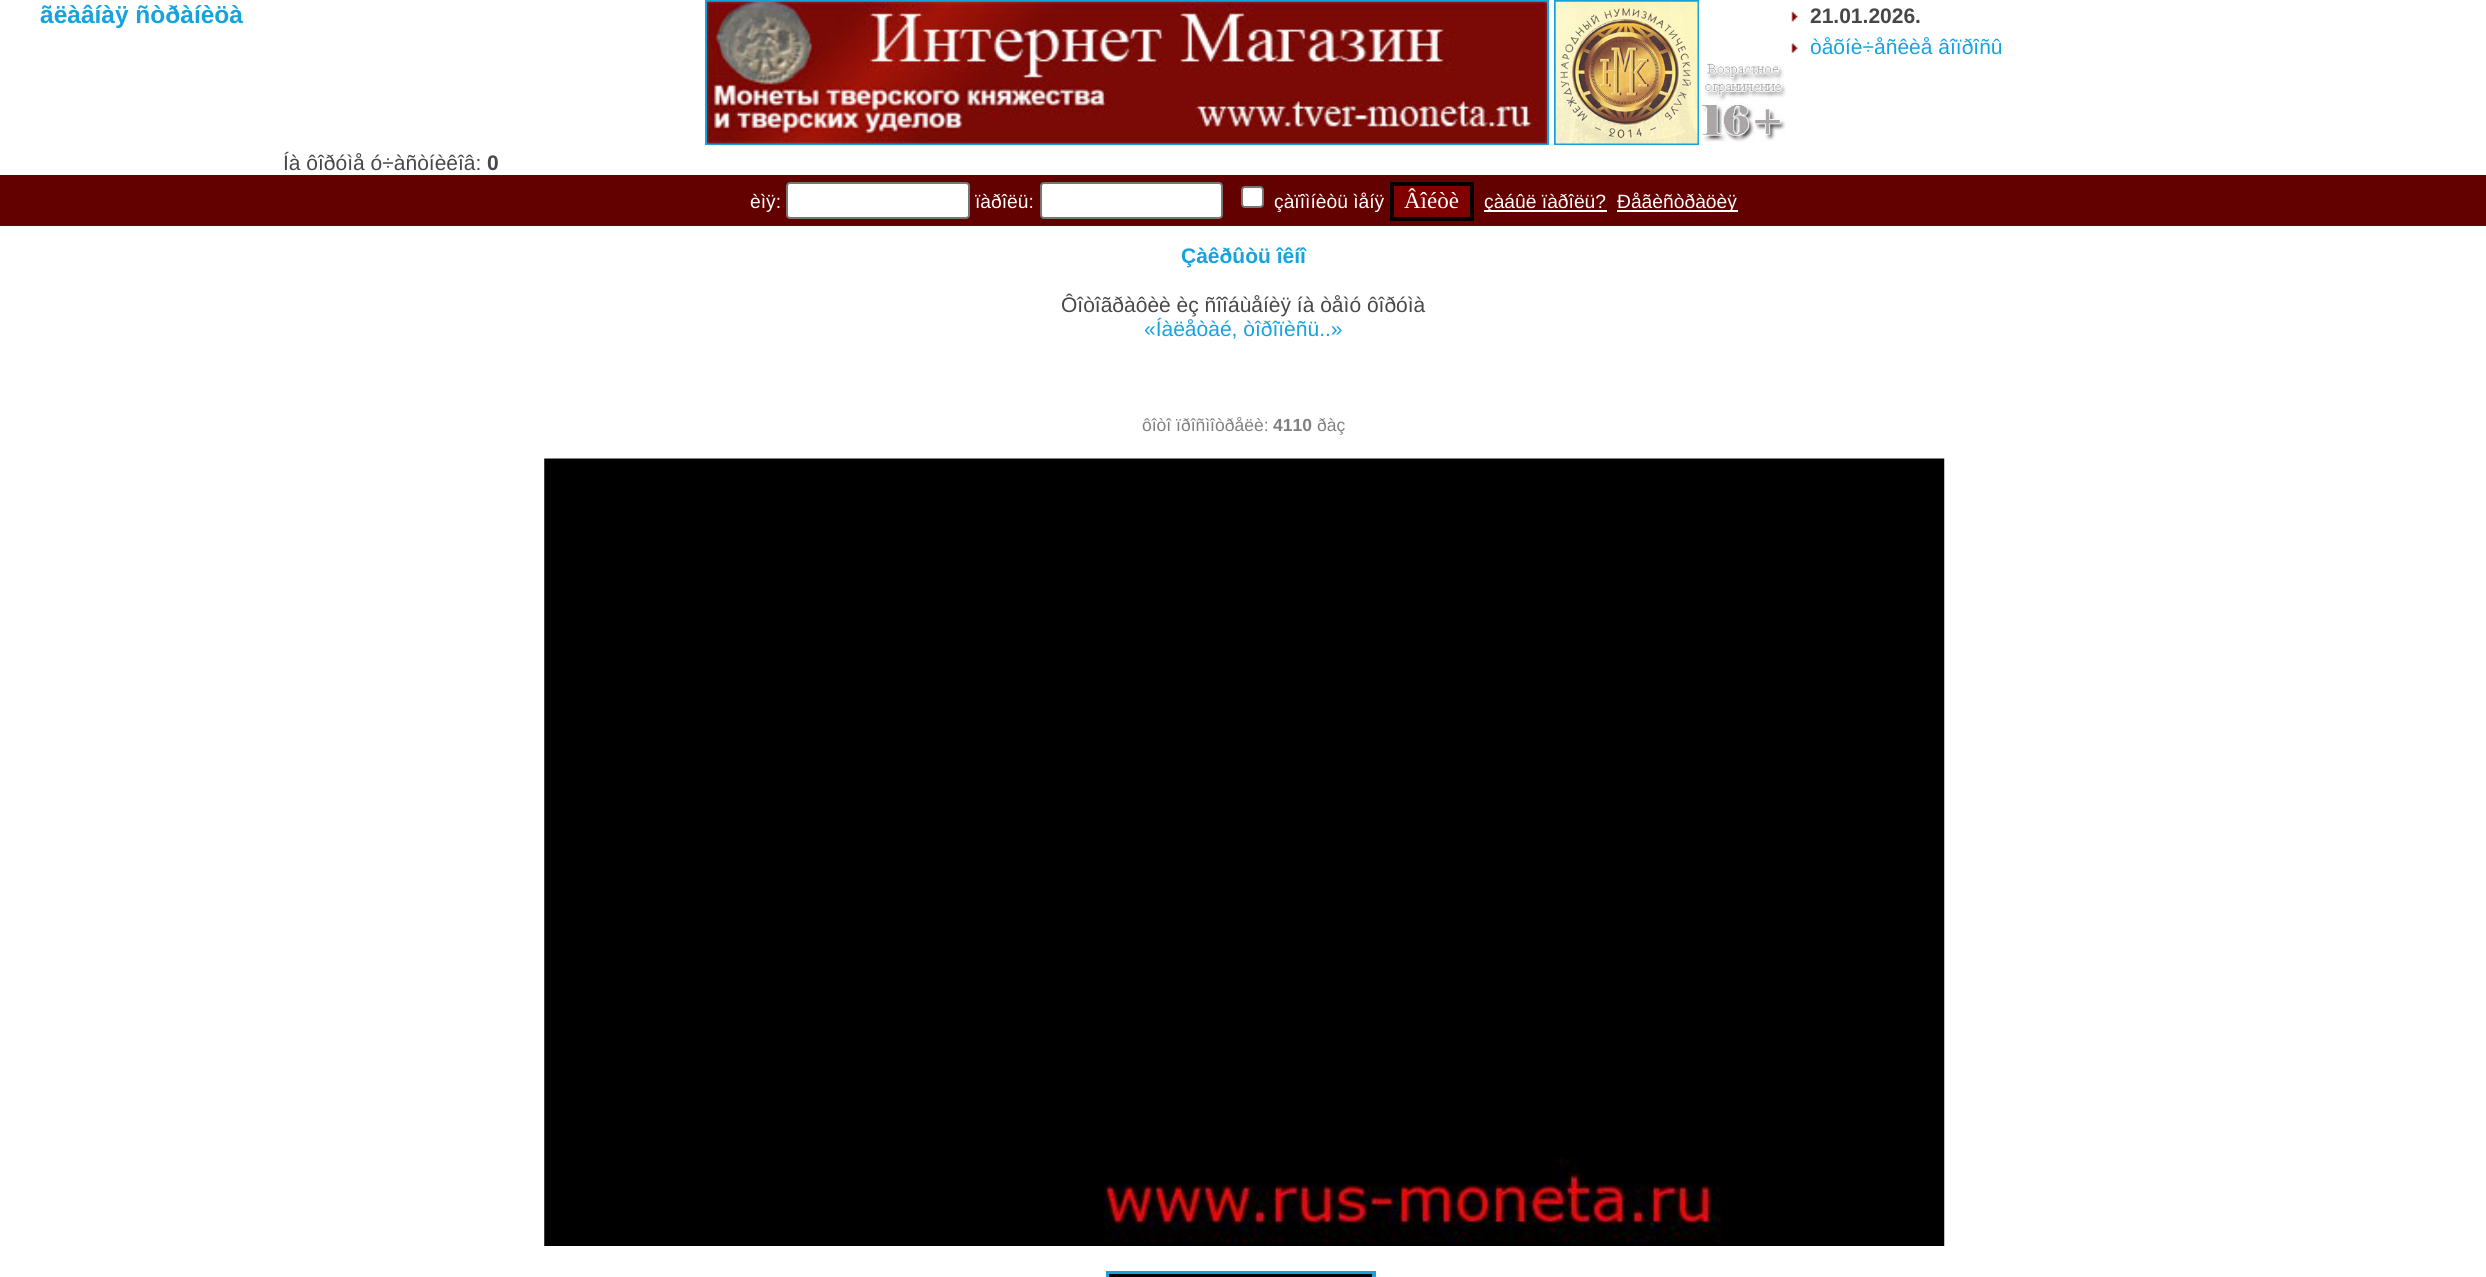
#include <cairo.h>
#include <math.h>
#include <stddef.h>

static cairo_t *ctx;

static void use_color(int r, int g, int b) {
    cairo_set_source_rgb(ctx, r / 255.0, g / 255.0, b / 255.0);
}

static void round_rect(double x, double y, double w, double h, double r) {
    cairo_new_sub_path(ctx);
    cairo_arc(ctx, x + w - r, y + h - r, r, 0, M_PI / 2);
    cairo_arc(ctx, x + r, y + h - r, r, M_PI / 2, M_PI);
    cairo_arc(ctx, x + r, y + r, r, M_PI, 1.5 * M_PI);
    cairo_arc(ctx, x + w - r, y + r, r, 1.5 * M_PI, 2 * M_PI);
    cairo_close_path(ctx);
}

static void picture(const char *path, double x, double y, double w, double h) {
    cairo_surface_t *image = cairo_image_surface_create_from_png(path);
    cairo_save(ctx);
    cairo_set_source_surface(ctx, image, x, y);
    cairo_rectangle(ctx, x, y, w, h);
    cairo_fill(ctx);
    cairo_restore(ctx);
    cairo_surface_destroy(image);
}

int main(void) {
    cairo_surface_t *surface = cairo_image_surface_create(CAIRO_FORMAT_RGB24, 2486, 1277);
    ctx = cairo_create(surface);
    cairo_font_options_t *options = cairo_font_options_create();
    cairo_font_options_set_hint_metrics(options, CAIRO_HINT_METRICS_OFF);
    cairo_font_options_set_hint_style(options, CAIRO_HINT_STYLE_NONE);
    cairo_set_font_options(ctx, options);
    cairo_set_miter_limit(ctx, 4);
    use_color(255, 255, 255);
    cairo_paint(ctx);
    cairo_select_font_face(ctx, "Liberation Sans", CAIRO_FONT_SLANT_NORMAL, CAIRO_FONT_WEIGHT_BOLD);
    cairo_set_font_size(ctx, 24.5);
    use_color(20, 163, 223);
    cairo_move_to(ctx, 40, 23);
    cairo_show_text(ctx, "ãëàâíàÿ ñòðàíèöà");
    picture("img1.png", 1791, 11, 7, 11);
    cairo_set_font_size(ctx, 21);
    use_color(71, 71, 71);
    cairo_move_to(ctx, 1810, 23);
    cairo_show_text(ctx, "21.01.2026.");
    picture("img2.png", 1791, 43, 7, 10);
    cairo_select_font_face(ctx, "Liberation Sans", CAIRO_FONT_SLANT_NORMAL, CAIRO_FONT_WEIGHT_NORMAL);
    use_color(20, 163, 223);
    cairo_move_to(ctx, 1810, 54);
    cairo_show_text(ctx, "òåõíè÷åñêèå âîïðîñû");
    cairo_rectangle(ctx, 706, 1, 842, 143);
    cairo_stroke(ctx);
    cairo_rectangle(ctx, 1555, 1, 143, 143);
    cairo_stroke(ctx);
    picture("img3.png", 707, 1, 840, 143);
    picture("img4.png", 1555, 1, 143, 143);
    picture("img5.png", 1699, 63, 87, 79);
    use_color(71, 71, 71);
    cairo_move_to(ctx, 283, 170);
    cairo_show_text(ctx, "Íà ôîðóìå ó÷àñòíèêîâ:");
    cairo_select_font_face(ctx, "Liberation Sans", CAIRO_FONT_SLANT_NORMAL, CAIRO_FONT_WEIGHT_BOLD);
    cairo_move_to(ctx, 487, 170);
    cairo_show_text(ctx, "0");
    use_color(99, 0, 0);
    cairo_rectangle(ctx, 0, 175, 2486, 51);
    cairo_fill(ctx);
    cairo_select_font_face(ctx, "Liberation Sans", CAIRO_FONT_SLANT_NORMAL, CAIRO_FONT_WEIGHT_NORMAL);
    cairo_set_font_size(ctx, 19.25);
    use_color(255, 255, 255);
    cairo_move_to(ctx, 750, 208);
    cairo_show_text(ctx, "èìÿ:");
    round_rect(787, 183, 182, 35, 3);
    cairo_fill_preserve(ctx);
    use_color(118, 118, 118);
    cairo_stroke(ctx);
    use_color(255, 255, 255);
    cairo_move_to(ctx, 975, 208);
    cairo_show_text(ctx, "ïàðîëü:");
    round_rect(1041, 183, 181, 35, 3);
    cairo_fill_preserve(ctx);
    use_color(118, 118, 118);
    cairo_stroke(ctx);
    use_color(255, 255, 255);
    round_rect(1242, 187, 21, 20, 3);
    cairo_fill_preserve(ctx);
    use_color(118, 118, 118);
    cairo_stroke(ctx);
    use_color(255, 255, 255);
    cairo_move_to(ctx, 1274, 208);
    cairo_show_text(ctx, "çàïîìíèòü ìåíÿ");
    use_color(128, 0, 0);
    cairo_rectangle(ctx, 1392, 184, 80, 35);
    cairo_fill_preserve(ctx);
    use_color(0, 0, 0);
    cairo_set_line_width(ctx, 4);
    cairo_stroke(ctx);
    cairo_select_font_face(ctx, "Liberation Serif", CAIRO_FONT_SLANT_NORMAL, CAIRO_FONT_WEIGHT_NORMAL);
    cairo_set_font_size(ctx, 23);
    use_color(255, 255, 255);
    cairo_move_to(ctx, 1404, 208);
    cairo_show_text(ctx, "Âîéòè");
    cairo_rectangle(ctx, 1484, 210, 123, 2);
    cairo_fill(ctx);
    cairo_select_font_face(ctx, "Liberation Sans", CAIRO_FONT_SLANT_NORMAL, CAIRO_FONT_WEIGHT_NORMAL);
    cairo_set_font_size(ctx, 19.25);
    cairo_move_to(ctx, 1484, 208);
    cairo_show_text(ctx, "çàáûë ïàðîëü?");
    cairo_rectangle(ctx, 1617, 210, 121, 2);
    cairo_fill(ctx);
    cairo_move_to(ctx, 1617, 208);
    cairo_show_text(ctx, "Ðåãèñòðàöèÿ");
    cairo_select_font_face(ctx, "Liberation Sans", CAIRO_FONT_SLANT_NORMAL, CAIRO_FONT_WEIGHT_BOLD);
    cairo_set_font_size(ctx, 21);
    use_color(20, 163, 223);
    cairo_move_to(ctx, 1181, 263);
    cairo_show_text(ctx, "Çàêðûòü îêíî");
    cairo_select_font_face(ctx, "Liberation Sans", CAIRO_FONT_SLANT_NORMAL, CAIRO_FONT_WEIGHT_NORMAL);
    use_color(71, 71, 71);
    cairo_move_to(ctx, 1061, 312);
    cairo_show_text(ctx, "Ôîòîãðàôèè èç ñîîáùåíèÿ íà òåìó ôîðóìà");
    use_color(20, 163, 223);
    cairo_move_to(ctx, 1144, 336);
    cairo_show_text(ctx, "«Íàëåòàé, òîðîïèñü..»");
    cairo_set_font_size(ctx, 17.5);
    use_color(128, 128, 128);
    cairo_move_to(ctx, 1142, 431);
    cairo_show_text(ctx, "ôîòî ïðîñìîòðåëè:");
    cairo_select_font_face(ctx, "Liberation Sans", CAIRO_FONT_SLANT_NORMAL, CAIRO_FONT_WEIGHT_BOLD);
    cairo_move_to(ctx, 1273, 431);
    cairo_show_text(ctx, "4110");
    cairo_select_font_face(ctx, "Liberation Sans", CAIRO_FONT_SLANT_NORMAL, CAIRO_FONT_WEIGHT_NORMAL);
    cairo_move_to(ctx, 1317, 431);
    cairo_show_text(ctx, "ðàç");
    picture("img6.png", 544, 458, 1401, 788);
    cairo_rectangle(ctx, 1108, 1273, 266, 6);
    use_color(20, 163, 223);
    cairo_stroke(ctx);
    use_color(0, 0, 0);
    cairo_rectangle(ctx, 1109, 1274, 263, 3);
    cairo_fill(ctx);
    cairo_surface_write_to_png(surface, "result.png");
    cairo_font_options_destroy(options);
    cairo_destroy(ctx);
    cairo_surface_destroy(surface);
    return 0;
}
